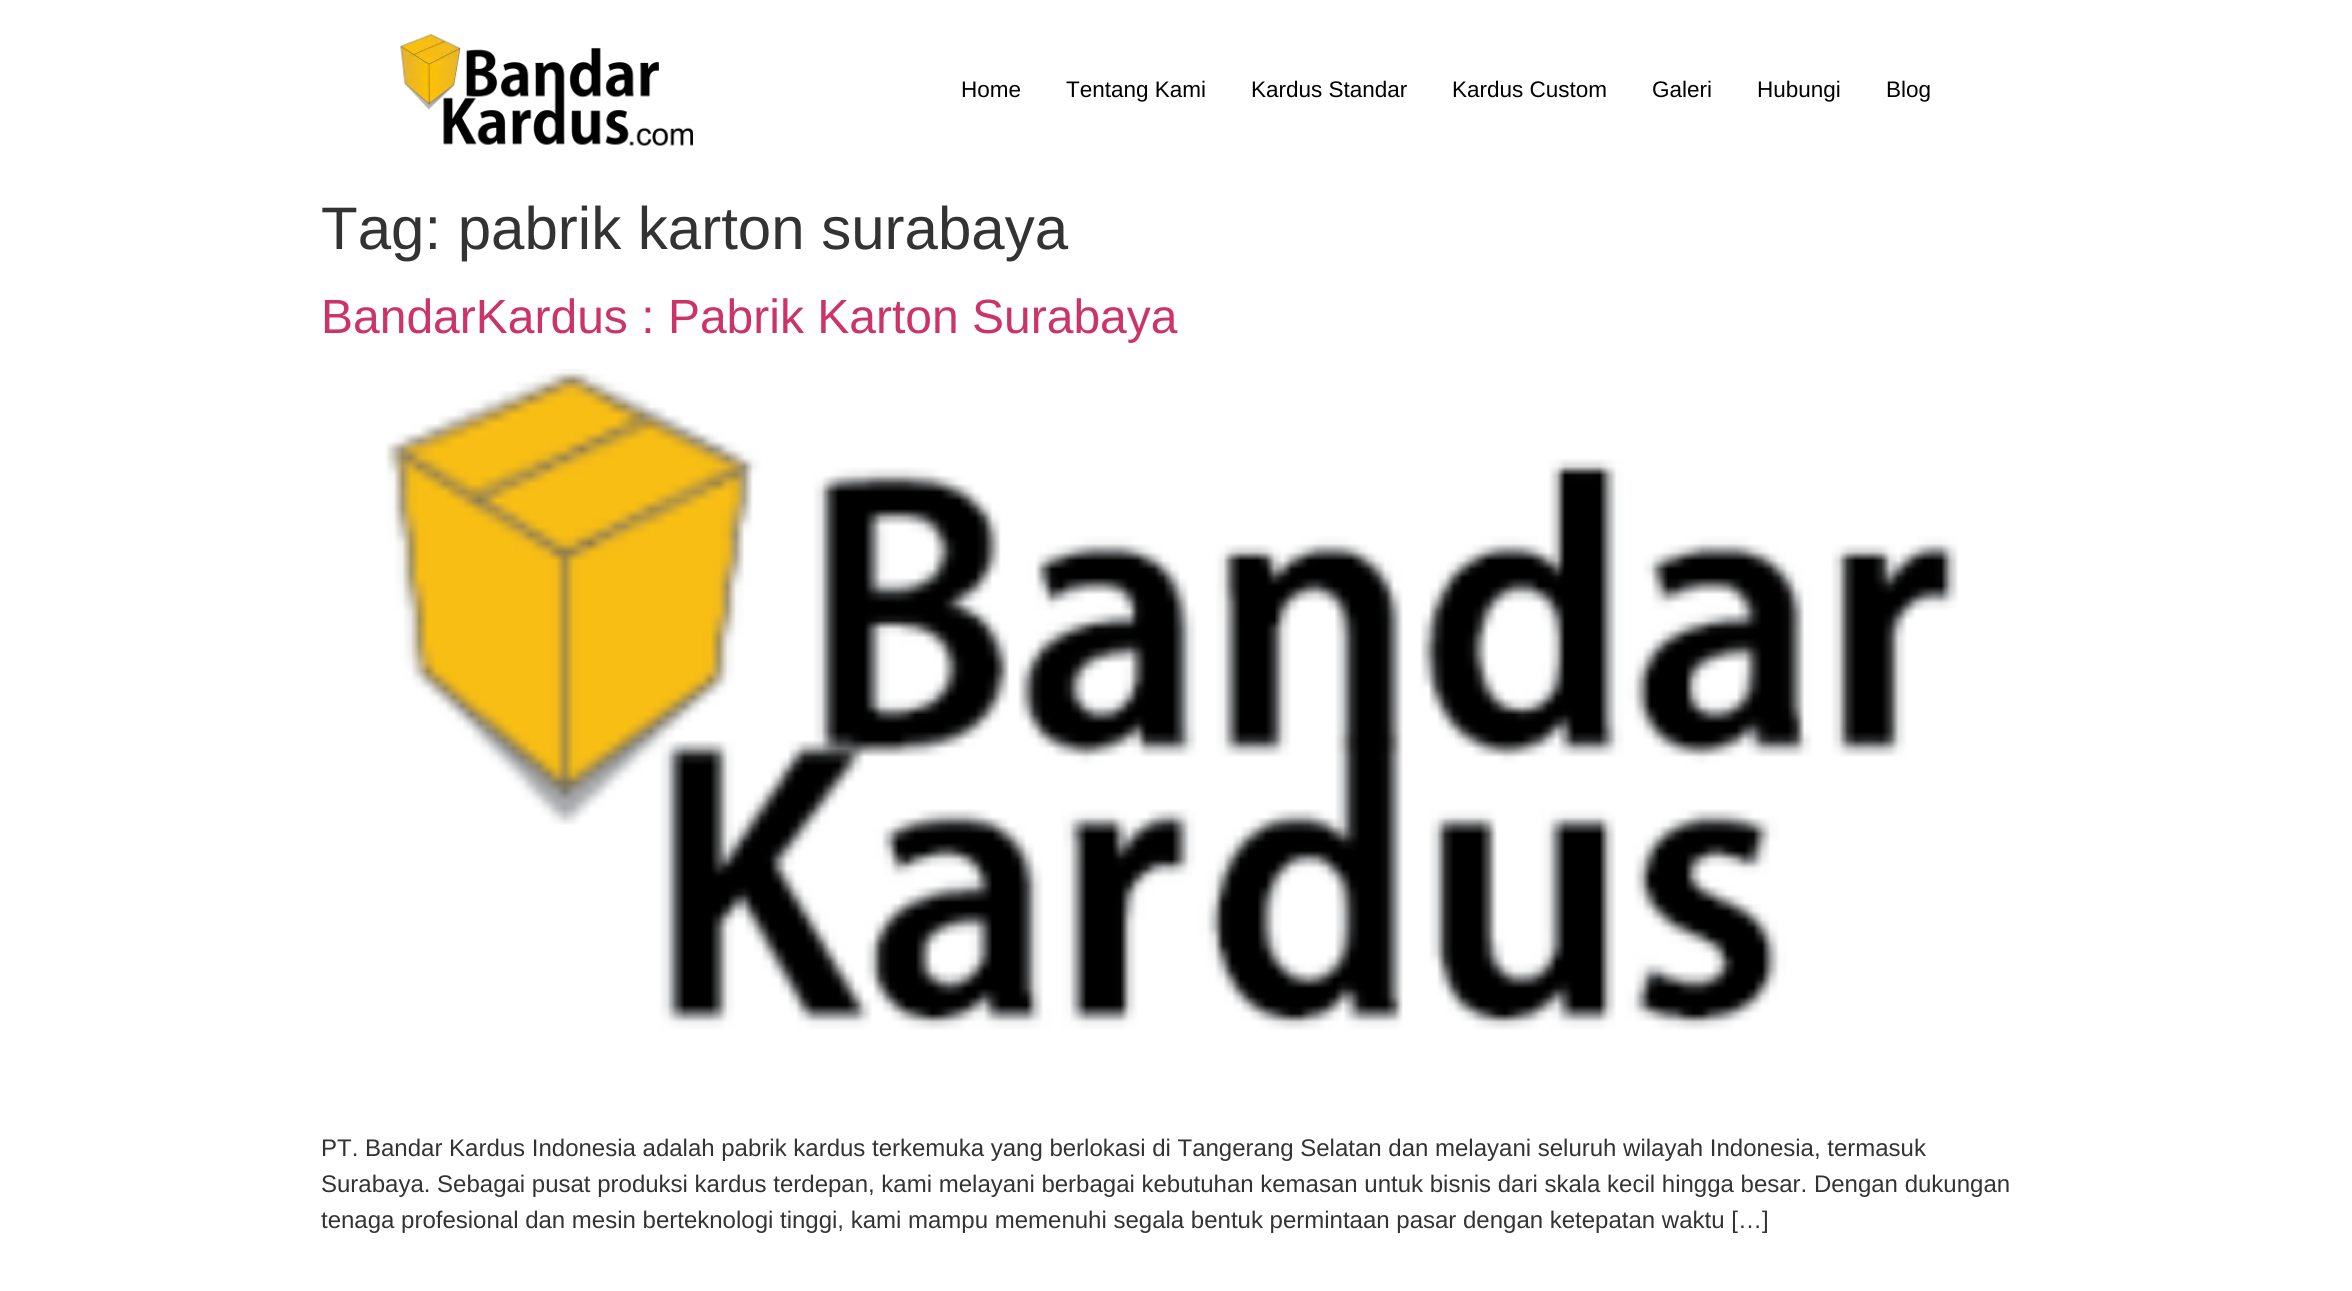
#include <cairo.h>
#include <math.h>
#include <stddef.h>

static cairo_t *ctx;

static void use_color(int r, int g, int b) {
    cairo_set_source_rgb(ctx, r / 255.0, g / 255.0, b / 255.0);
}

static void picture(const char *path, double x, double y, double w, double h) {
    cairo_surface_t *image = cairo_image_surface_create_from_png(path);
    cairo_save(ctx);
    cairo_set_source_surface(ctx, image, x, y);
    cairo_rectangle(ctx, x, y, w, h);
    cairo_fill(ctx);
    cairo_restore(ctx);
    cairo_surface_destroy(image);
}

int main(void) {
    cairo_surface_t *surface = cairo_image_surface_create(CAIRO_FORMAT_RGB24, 2352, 1291);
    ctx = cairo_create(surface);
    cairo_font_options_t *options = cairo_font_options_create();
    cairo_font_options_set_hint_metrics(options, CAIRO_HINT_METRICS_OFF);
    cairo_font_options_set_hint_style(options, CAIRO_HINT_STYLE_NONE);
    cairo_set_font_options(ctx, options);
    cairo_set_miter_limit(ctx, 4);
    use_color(255, 255, 255);
    cairo_paint(ctx);
    picture("img1.png", 400, 34, 293, 112);
    cairo_select_font_face(ctx, "Liberation Sans", CAIRO_FONT_SLANT_NORMAL, CAIRO_FONT_WEIGHT_NORMAL);
    cairo_set_font_size(ctx, 22.5);
    use_color(0, 0, 0);
    cairo_move_to(ctx, 961, 97);
    cairo_show_text(ctx, "Home");
    cairo_move_to(ctx, 1066, 97);
    cairo_show_text(ctx, "Tentang Kami");
    cairo_move_to(ctx, 1251, 97);
    cairo_show_text(ctx, "Kardus Standar");
    cairo_move_to(ctx, 1452, 97);
    cairo_show_text(ctx, "Kardus Custom");
    cairo_move_to(ctx, 1652, 97);
    cairo_show_text(ctx, "Galeri");
    cairo_move_to(ctx, 1757, 97);
    cairo_show_text(ctx, "Hubungi");
    cairo_move_to(ctx, 1886, 97);
    cairo_show_text(ctx, "Blog");
    cairo_set_font_size(ctx, 60);
    use_color(51, 51, 51);
    cairo_move_to(ctx, 321, 249);
    cairo_show_text(ctx, "Tag: pabrik karton surabaya");
    cairo_set_font_size(ctx, 48);
    use_color(204, 51, 102);
    cairo_move_to(ctx, 321, 333);
    cairo_show_text(ctx, "BandarKardus : Pabrik Karton Surabaya");
    picture("img2.png", 386, 369, 1572, 661);
    cairo_set_font_size(ctx, 24);
    use_color(51, 51, 51);
    cairo_move_to(ctx, 321, 1156);
    cairo_show_text(ctx, "PT. Bandar Kardus Indonesia adalah pabrik kardus terkemuka yang berlokasi di Tangerang Selatan dan melayani seluruh wilayah Indonesia, termasuk");
    cairo_move_to(ctx, 321, 1192);
    cairo_show_text(ctx, "Surabaya. Sebagai pusat produksi kardus terdepan, kami melayani berbagai kebutuhan kemasan untuk bisnis dari skala kecil hingga besar. Dengan dukungan");
    cairo_move_to(ctx, 321, 1228);
    cairo_show_text(ctx, "tenaga profesional dan mesin berteknologi tinggi, kami mampu memenuhi segala bentuk permintaan pasar dengan ketepatan waktu […]");
    cairo_surface_write_to_png(surface, "result.png");
    cairo_font_options_destroy(options);
    cairo_destroy(ctx);
    cairo_surface_destroy(surface);
    return 0;
}
